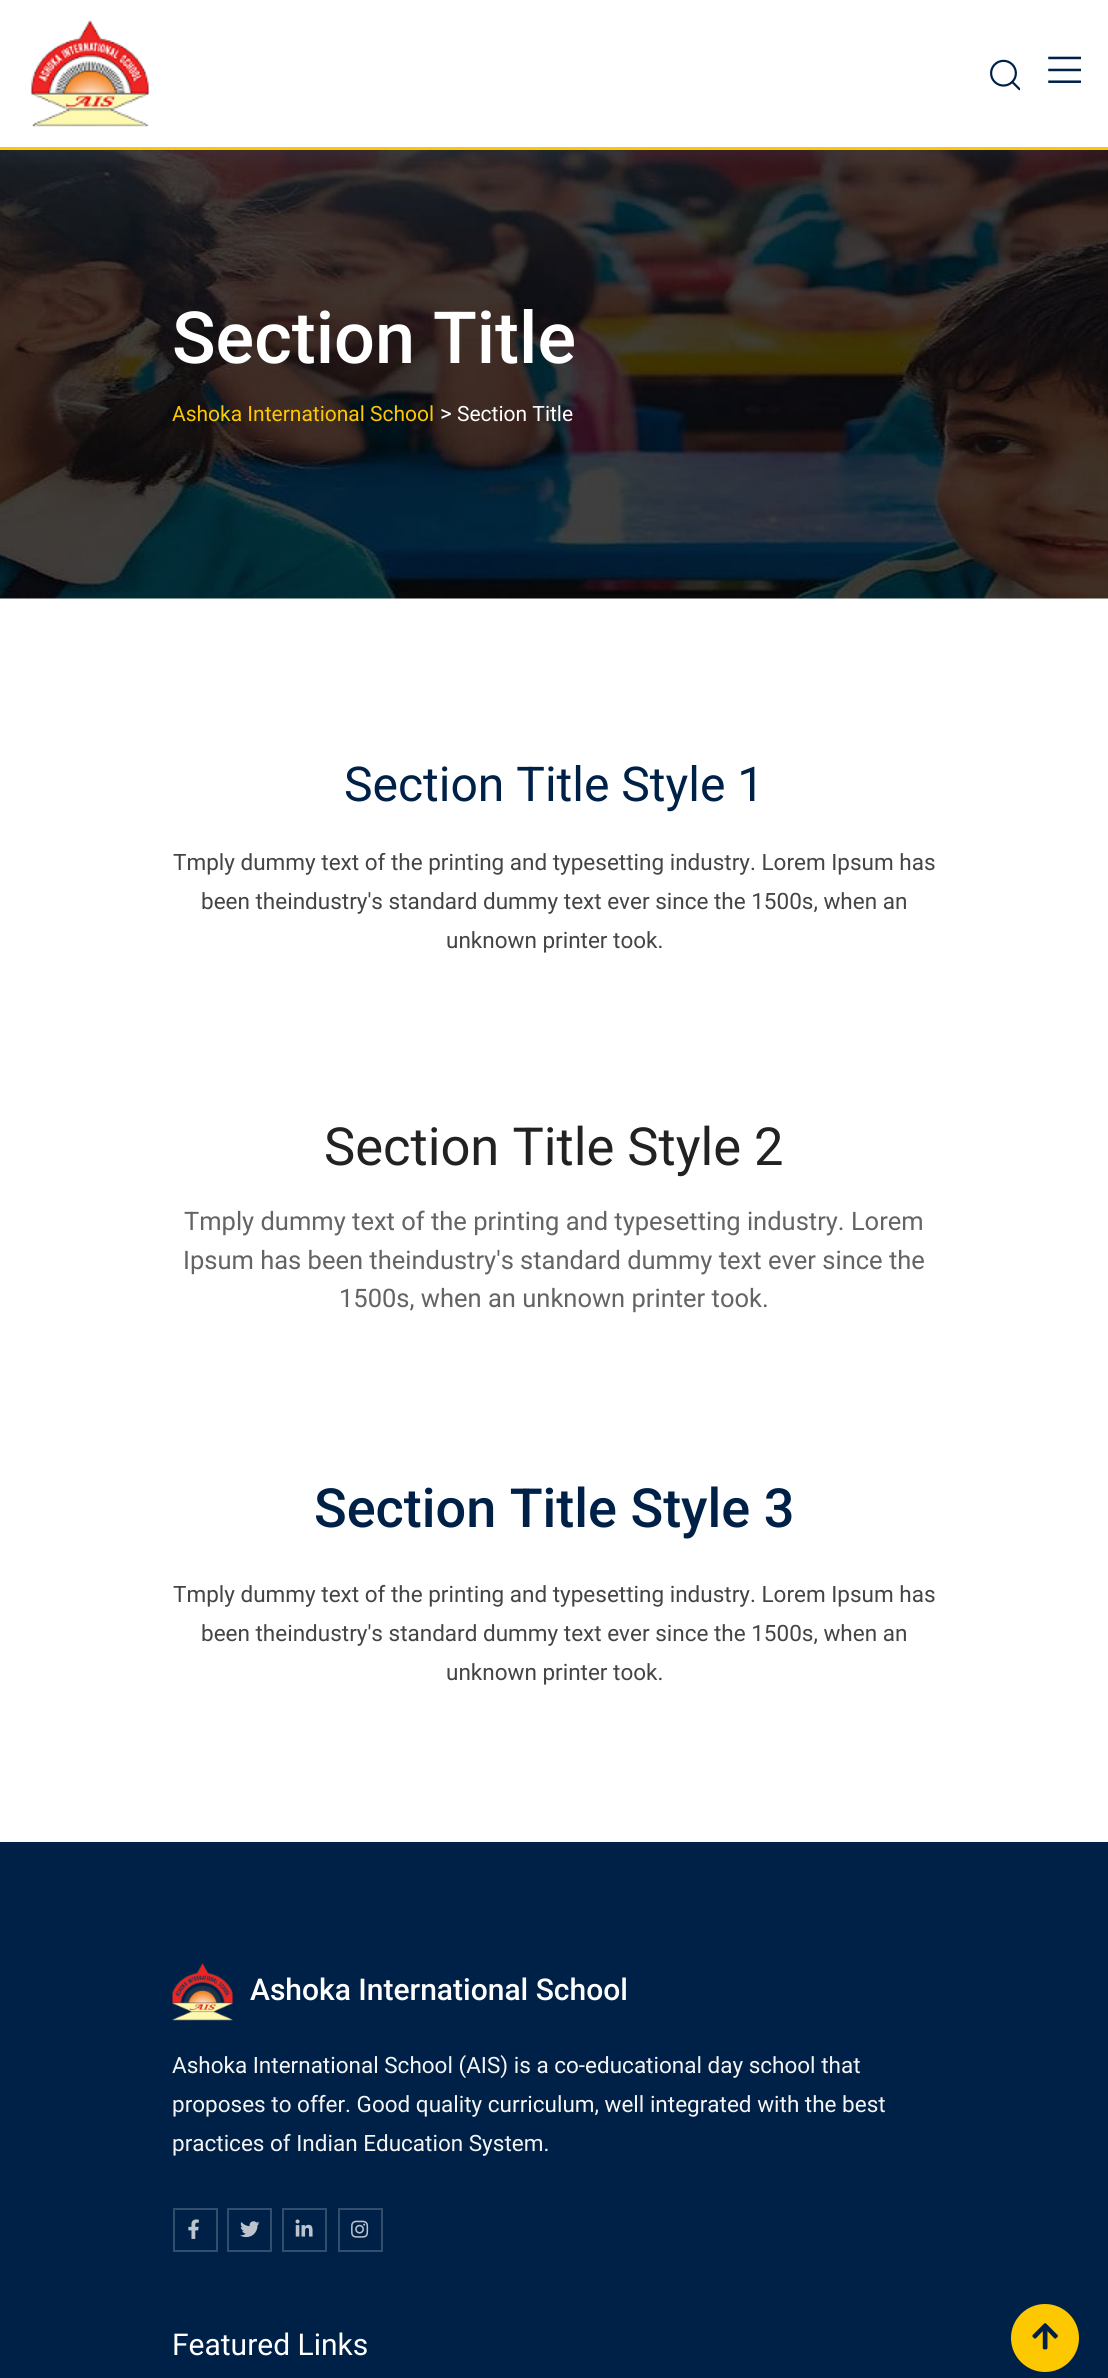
#include <cairo.h>
#include <math.h>
#include <stddef.h>

static cairo_t *ctx;

static void use_color(int r, int g, int b) {
    cairo_set_source_rgb(ctx, r / 255.0, g / 255.0, b / 255.0);
}

static void spaced_text(double x, double y, const char *s, double letter, double word) {
    cairo_move_to(ctx, x, y);
    while (*s) {
        char ch[5] = {0};
        int n = 0;
        do ch[n++] = *s++; while ((*s & 0xC0) == 0x80);
        cairo_show_text(ctx, ch);
        cairo_rel_move_to(ctx, letter + word * (*ch == ' '), 0);
    }
}

static void round_rect(double x, double y, double w, double h, double r) {
    cairo_new_sub_path(ctx);
    cairo_arc(ctx, x + w - r, y + h - r, r, 0, M_PI / 2);
    cairo_arc(ctx, x + r, y + h - r, r, M_PI / 2, M_PI);
    cairo_arc(ctx, x + r, y + r, r, M_PI, 1.5 * M_PI);
    cairo_arc(ctx, x + w - r, y + r, r, 1.5 * M_PI, 2 * M_PI);
    cairo_close_path(ctx);
}

static void shadow(double x, double y, double w, double h, double r, double blur, double alpha) {
    cairo_push_group_with_content(ctx, CAIRO_CONTENT_ALPHA);
    cairo_set_operator(ctx, CAIRO_OPERATOR_SOURCE);
    for (int i = 15; i >= -15 && fmin(w, h) + blur * i / 3 > 0; i -= 2) {
        double e = blur * i / 6;
        cairo_set_source_rgba(ctx, 0, 0, 0, alpha * erfc((i - 1) / 8.5) / 2);
        round_rect(x - e, y - e, w + 2 * e, h + 2 * e, fmax(0, fmin(r + e + blur * .6, fmin(w, h) / 2 + e)));
        cairo_fill(ctx);
    }
    cairo_pattern_t *soft = cairo_pop_group(ctx);
    cairo_mask(ctx, soft);
    cairo_pattern_destroy(soft);
}

static void picture(const char *path, double x, double y, double w, double h) {
    cairo_surface_t *image = cairo_image_surface_create_from_png(path);
    cairo_save(ctx);
    cairo_set_source_surface(ctx, image, x, y);
    cairo_rectangle(ctx, x, y, w, h);
    cairo_fill(ctx);
    cairo_restore(ctx);
    cairo_surface_destroy(image);
}

int main(void) {
    cairo_surface_t *surface = cairo_image_surface_create(CAIRO_FORMAT_RGB24, 1108, 2378);
    ctx = cairo_create(surface);
    cairo_font_options_t *options = cairo_font_options_create();
    cairo_font_options_set_hint_metrics(options, CAIRO_HINT_METRICS_OFF);
    cairo_font_options_set_hint_style(options, CAIRO_HINT_STYLE_NONE);
    cairo_set_font_options(ctx, options);
    cairo_set_miter_limit(ctx, 4);
    use_color(255, 255, 255);
    cairo_paint(ctx);
    picture("img3.png", 0, 150, 1108, 449);
    cairo_save(ctx);
    cairo_rectangle(ctx, 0, 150, 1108, 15);
    cairo_clip(ctx);
    use_color(87, 101, 128);
    shadow(0, 8, 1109, 150, 0, 7.5, 0.12);
    cairo_restore(ctx);
    use_color(253, 200, 0);
    cairo_rectangle(ctx, 0, 147, 1108, 3);
    cairo_fill(ctx);
    picture("img1.png", 30, 20, 120, 107);
    picture("img2.png", 990, 59, 30, 32);
    cairo_select_font_face(ctx, "Liberation Serif", CAIRO_FONT_SLANT_NORMAL, CAIRO_FONT_WEIGHT_BOLD);
    cairo_set_font_size(ctx, 36);
    use_color(0, 33, 71);
    cairo_save(ctx);
    cairo_translate(ctx, 1056, 54);
    cairo_rotate(ctx, 90 * M_PI / 180);
    spaced_text(0, 0, "| | |", -2.5, 0);
    cairo_restore(ctx);
    cairo_select_font_face(ctx, "Roboto Medium", CAIRO_FONT_SLANT_NORMAL, CAIRO_FONT_WEIGHT_NORMAL);
    cairo_set_font_size(ctx, 72);
    use_color(255, 255, 255);
    cairo_move_to(ctx, 172, 363);
    cairo_show_text(ctx, "Section Title");
    cairo_select_font_face(ctx, "Roboto", CAIRO_FONT_SLANT_NORMAL, CAIRO_FONT_WEIGHT_NORMAL);
    cairo_set_font_size(ctx, 21);
    use_color(253, 200, 0);
    cairo_move_to(ctx, 172, 421);
    cairo_show_text(ctx, "Ashoka International School");
    cairo_set_font_size(ctx, 22.5);
    use_color(255, 255, 255);
    cairo_move_to(ctx, 440, 421);
    cairo_show_text(ctx, ">");
    cairo_set_font_size(ctx, 21);
    cairo_move_to(ctx, 457, 421);
    cairo_show_text(ctx, "Section Title");
    cairo_set_font_size(ctx, 48);
    use_color(0, 33, 71);
    cairo_move_to(ctx, 344, 801);
    cairo_show_text(ctx, "Section Title Style 1");
    cairo_set_font_size(ctx, 22.5);
    use_color(68, 68, 68);
    cairo_move_to(ctx, 173, 870);
    cairo_show_text(ctx, "Tmply dummy text of the printing and typesetting industry. Lorem Ipsum has");
    cairo_move_to(ctx, 201, 909);
    cairo_show_text(ctx, "been theindustry's standard dummy text ever since the 1500s, when an");
    cairo_move_to(ctx, 446, 948);
    cairo_show_text(ctx, "unknown printer took.");
    cairo_set_font_size(ctx, 52.5);
    use_color(34, 34, 34);
    cairo_move_to(ctx, 324, 1165);
    cairo_show_text(ctx, "Section Title Style 2");
    cairo_set_font_size(ctx, 25.5);
    use_color(100, 100, 100);
    cairo_move_to(ctx, 184, 1230);
    cairo_show_text(ctx, "Tmply dummy text of the printing and typesetting industry. Lorem");
    cairo_move_to(ctx, 183, 1269);
    cairo_show_text(ctx, "Ipsum has been theindustry's standard dummy text ever since the");
    cairo_move_to(ctx, 339, 1307);
    cairo_show_text(ctx, "1500s, when an unknown printer took.");
    cairo_select_font_face(ctx, "Roboto Medium", CAIRO_FONT_SLANT_NORMAL, CAIRO_FONT_WEIGHT_NORMAL);
    cairo_set_font_size(ctx, 54);
    use_color(0, 33, 71);
    cairo_move_to(ctx, 314, 1527);
    cairo_show_text(ctx, "Section Title Style 3");
    cairo_select_font_face(ctx, "Roboto", CAIRO_FONT_SLANT_NORMAL, CAIRO_FONT_WEIGHT_NORMAL);
    cairo_set_font_size(ctx, 22.5);
    use_color(68, 68, 68);
    cairo_move_to(ctx, 173, 1602);
    cairo_show_text(ctx, "Tmply dummy text of the printing and typesetting industry. Lorem Ipsum has");
    cairo_move_to(ctx, 201, 1641);
    cairo_show_text(ctx, "been theindustry's standard dummy text ever since the 1500s, when an");
    cairo_move_to(ctx, 446, 1680);
    cairo_show_text(ctx, "unknown printer took.");
    use_color(0, 33, 71);
    cairo_rectangle(ctx, 0, 1842, 1108, 536);
    cairo_fill(ctx);
    picture("img4.png", 172, 1963, 61, 58);
    cairo_select_font_face(ctx, "Roboto Medium", CAIRO_FONT_SLANT_NORMAL, CAIRO_FONT_WEIGHT_NORMAL);
    cairo_set_font_size(ctx, 30);
    use_color(255, 255, 255);
    cairo_move_to(ctx, 250, 2000);
    cairo_show_text(ctx, "Ashoka International School");
    cairo_select_font_face(ctx, "Roboto", CAIRO_FONT_SLANT_NORMAL, CAIRO_FONT_WEIGHT_NORMAL);
    cairo_set_font_size(ctx, 22.5);
    use_color(245, 245, 245);
    cairo_move_to(ctx, 172, 2073);
    cairo_show_text(ctx, "Ashoka International School (AIS) is a co-educational day school that");
    cairo_move_to(ctx, 172, 2112);
    cairo_show_text(ctx, "proposes to offer. Good quality curriculum, well integrated with the best");
    cairo_move_to(ctx, 172, 2151);
    cairo_show_text(ctx, "practices of Indian Education System.");
    cairo_rectangle(ctx, 174, 2209, 43, 42);
    use_color(51, 77, 108);
    cairo_stroke(ctx);
    picture("img5.png", 188, 2219, 11, 20);
    cairo_rectangle(ctx, 228, 2209, 43, 42);
    cairo_stroke(ctx);
    picture("img6.png", 240, 2221, 20, 17);
    cairo_rectangle(ctx, 283, 2209, 43, 42);
    cairo_stroke(ctx);
    picture("img7.png", 295, 2219, 18, 18);
    cairo_rectangle(ctx, 339, 2209, 43, 42);
    cairo_stroke(ctx);
    picture("img8.png", 351, 2220, 18, 18);
    cairo_set_font_size(ctx, 30);
    use_color(255, 255, 255);
    cairo_move_to(ctx, 172, 2355);
    cairo_show_text(ctx, "Featured Links");
    use_color(253, 200, 0);
    cairo_new_path(ctx);
    cairo_arc(ctx, 1045, 2338, 34, 0, 2 * M_PI);
    cairo_fill(ctx);
    picture("img9.png", 1032, 2323, 26, 27);
    cairo_surface_write_to_png(surface, "result.png");
    cairo_font_options_destroy(options);
    cairo_destroy(ctx);
    cairo_surface_destroy(surface);
    return 0;
}
